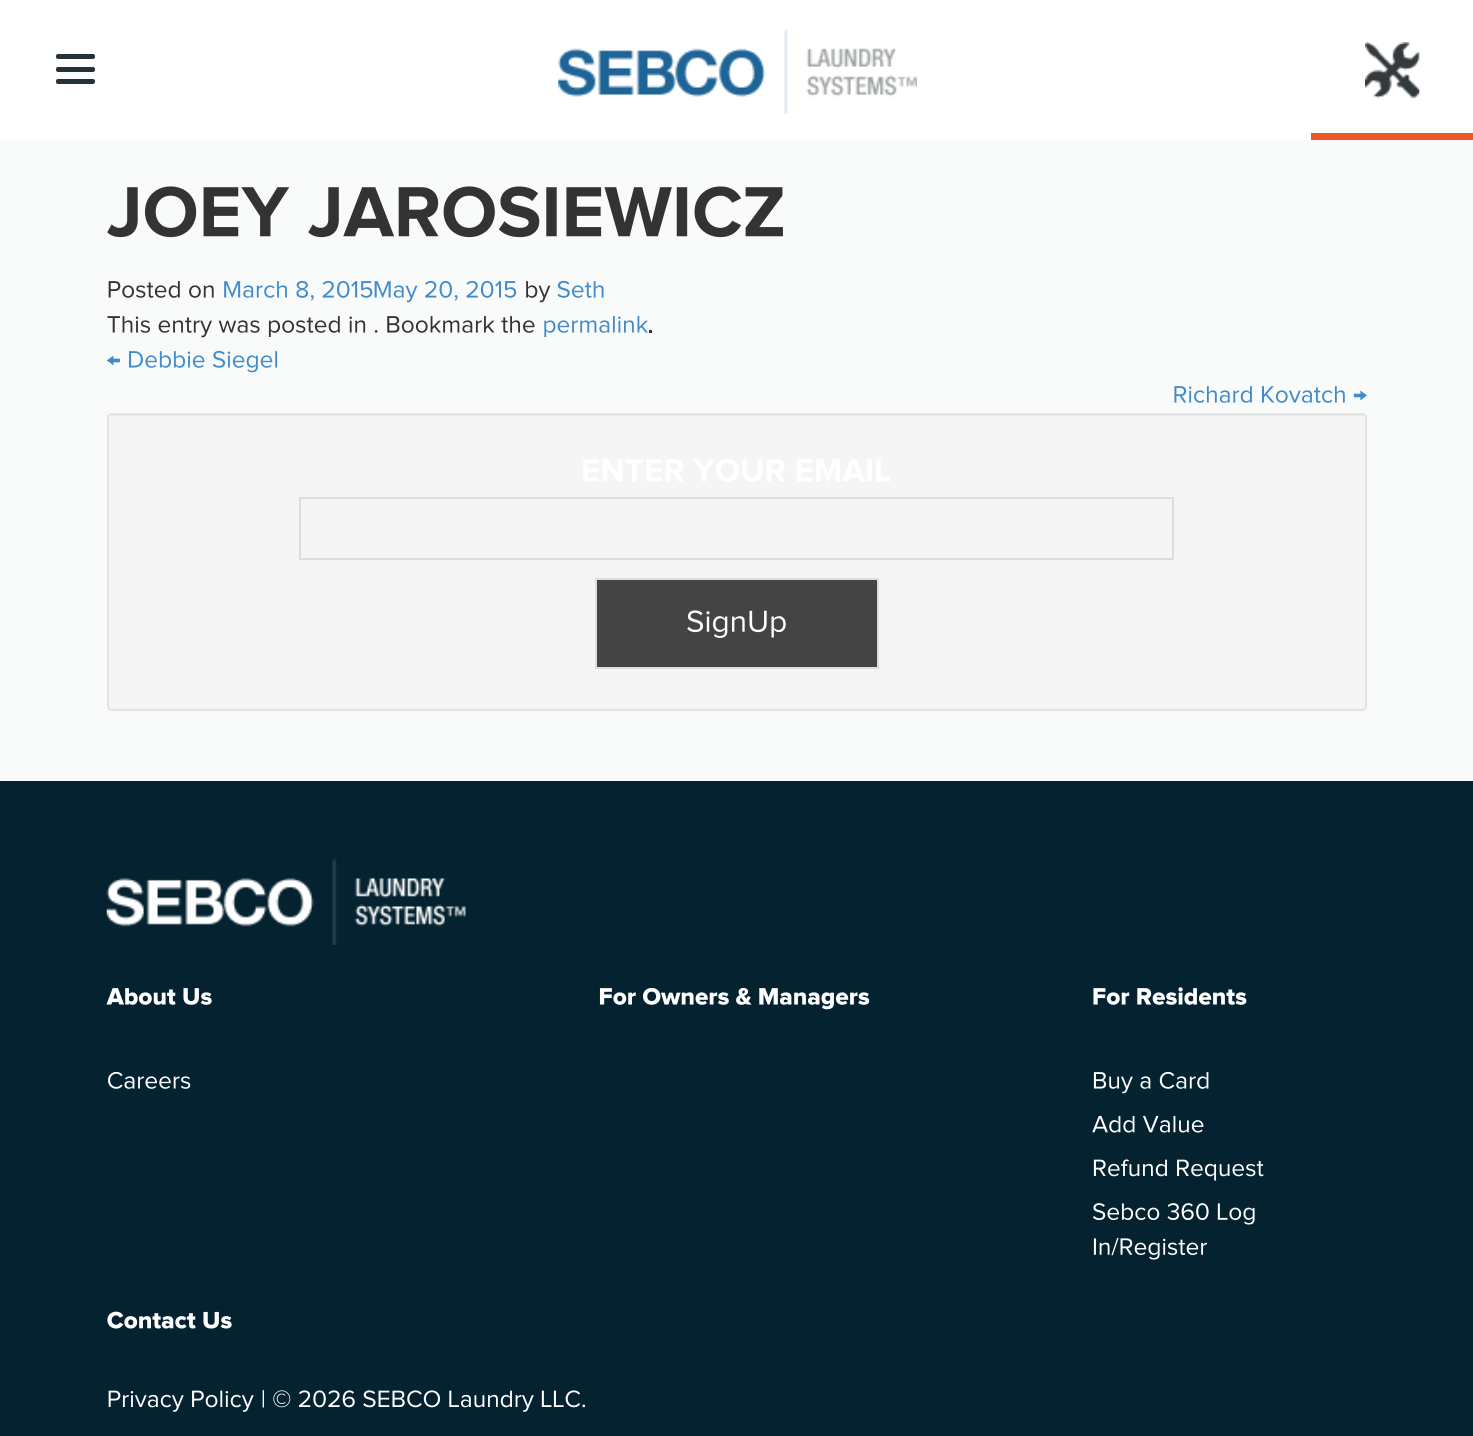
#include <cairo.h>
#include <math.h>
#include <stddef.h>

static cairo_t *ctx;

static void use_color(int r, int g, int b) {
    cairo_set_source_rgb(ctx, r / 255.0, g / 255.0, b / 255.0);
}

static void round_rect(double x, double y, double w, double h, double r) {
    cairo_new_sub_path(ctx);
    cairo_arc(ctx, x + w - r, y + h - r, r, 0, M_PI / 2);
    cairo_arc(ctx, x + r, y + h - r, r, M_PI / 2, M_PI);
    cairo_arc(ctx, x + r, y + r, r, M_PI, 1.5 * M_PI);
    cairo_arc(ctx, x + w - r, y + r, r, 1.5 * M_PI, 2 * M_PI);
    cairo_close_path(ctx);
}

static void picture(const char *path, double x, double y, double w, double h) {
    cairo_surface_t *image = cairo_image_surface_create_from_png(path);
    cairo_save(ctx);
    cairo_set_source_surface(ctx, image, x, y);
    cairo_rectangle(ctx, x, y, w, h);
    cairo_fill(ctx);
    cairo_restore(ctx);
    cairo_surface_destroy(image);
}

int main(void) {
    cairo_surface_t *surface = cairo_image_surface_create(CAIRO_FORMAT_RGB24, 1473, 1436);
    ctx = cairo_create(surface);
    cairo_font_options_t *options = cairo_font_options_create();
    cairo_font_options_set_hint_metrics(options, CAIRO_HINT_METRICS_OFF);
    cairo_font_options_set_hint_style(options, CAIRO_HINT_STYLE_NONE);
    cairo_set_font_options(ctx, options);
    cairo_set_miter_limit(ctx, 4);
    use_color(255, 255, 255);
    cairo_paint(ctx);
    use_color(38, 50, 56);
    round_rect(56, 54, 39, 5, 2);
    cairo_fill(ctx);
    round_rect(56, 67, 39, 5, 2);
    cairo_fill(ctx);
    round_rect(56, 79, 39, 5, 2);
    cairo_fill(ctx);
    picture("img1.png", 558, 29, 359, 85);
    use_color(237, 85, 43);
    cairo_rectangle(ctx, 1311, 133, 162, 7);
    cairo_fill(ctx);
    picture("img2.png", 1365, 42, 55, 56);
    use_color(249, 250, 250);
    cairo_rectangle(ctx, 0, 140, 1473, 641);
    cairo_fill(ctx);
    picture("img3.png", 107, 186, 676, 52);
    picture("img4.png", 108, 281, 106, 17);
    picture("img5.png", 224, 280, 149, 21);
    picture("img6.png", 374, 280, 143, 23);
    picture("img7.png", 526, 281, 25, 22);
    picture("img8.png", 557, 280, 47, 18);
    picture("img9.png", 107, 316, 428, 22);
    picture("img10.png", 544, 316, 104, 21);
    use_color(51, 51, 51);
    cairo_rectangle(ctx, 649, 330, 3, 3);
    cairo_fill(ctx);
    picture("img11.png", 106, 355, 14, 11);
    picture("img12.png", 129, 350, 149, 23);
    picture("img13.png", 1174, 386, 171, 17);
    picture("img14.png", 1353, 390, 14, 11);
    use_color(245, 245, 245);
    round_rect(107, 413, 1260, 298, 5);
    cairo_fill(ctx);
    use_color(233, 233, 233);
    cairo_new_path(ctx);
    cairo_move_to(ctx, 112, 416);
    cairo_line_to(ctx, 1362, 416);
    cairo_curve_to(ctx, 1363, 416, 1365, 418, 1365, 420);
    cairo_line_to(ctx, 1365, 419);
    cairo_curve_to(ctx, 1365, 417, 1363, 415, 1361, 415);
    cairo_line_to(ctx, 113, 415);
    cairo_curve_to(ctx, 112, 415, 110, 416, 110, 417);
    cairo_close_path(ctx);
    cairo_fill(ctx);
    round_rect(108, 414, 1258, 296, 4);
    use_color(227, 227, 227);
    cairo_stroke(ctx);
    picture("img15.png", 583, 459, 307, 23);
    cairo_rectangle(ctx, 300, 498, 873, 61);
    use_color(221, 221, 221);
    cairo_stroke(ctx);
    use_color(68, 68, 68);
    cairo_rectangle(ctx, 596, 579, 282, 89);
    cairo_fill_preserve(ctx);
    use_color(221, 221, 221);
    cairo_stroke(ctx);
    picture("img16.png", 687, 610, 99, 28);
    use_color(4, 34, 48);
    cairo_rectangle(ctx, 0, 781, 1473, 655);
    cairo_fill(ctx);
    picture("img17.png", 106, 859, 360, 86);
    picture("img18.png", 106, 988, 106, 17);
    picture("img19.png", 108, 1071, 83, 18);
    picture("img20.png", 599, 987, 271, 23);
    picture("img21.png", 1093, 987, 154, 18);
    picture("img22.png", 1093, 1071, 116, 23);
    picture("img23.png", 1092, 1115, 112, 18);
    picture("img24.png", 1093, 1159, 171, 22);
    picture("img25.png", 1093, 1203, 162, 22);
    picture("img26.png", 1093, 1237, 114, 23);
    picture("img27.png", 107, 1311, 125, 18);
    picture("img28.png", 108, 1390, 146, 22);
    picture("img29.png", 262, 1390, 324, 22);
    cairo_surface_write_to_png(surface, "result.png");
    cairo_font_options_destroy(options);
    cairo_destroy(ctx);
    cairo_surface_destroy(surface);
    return 0;
}
